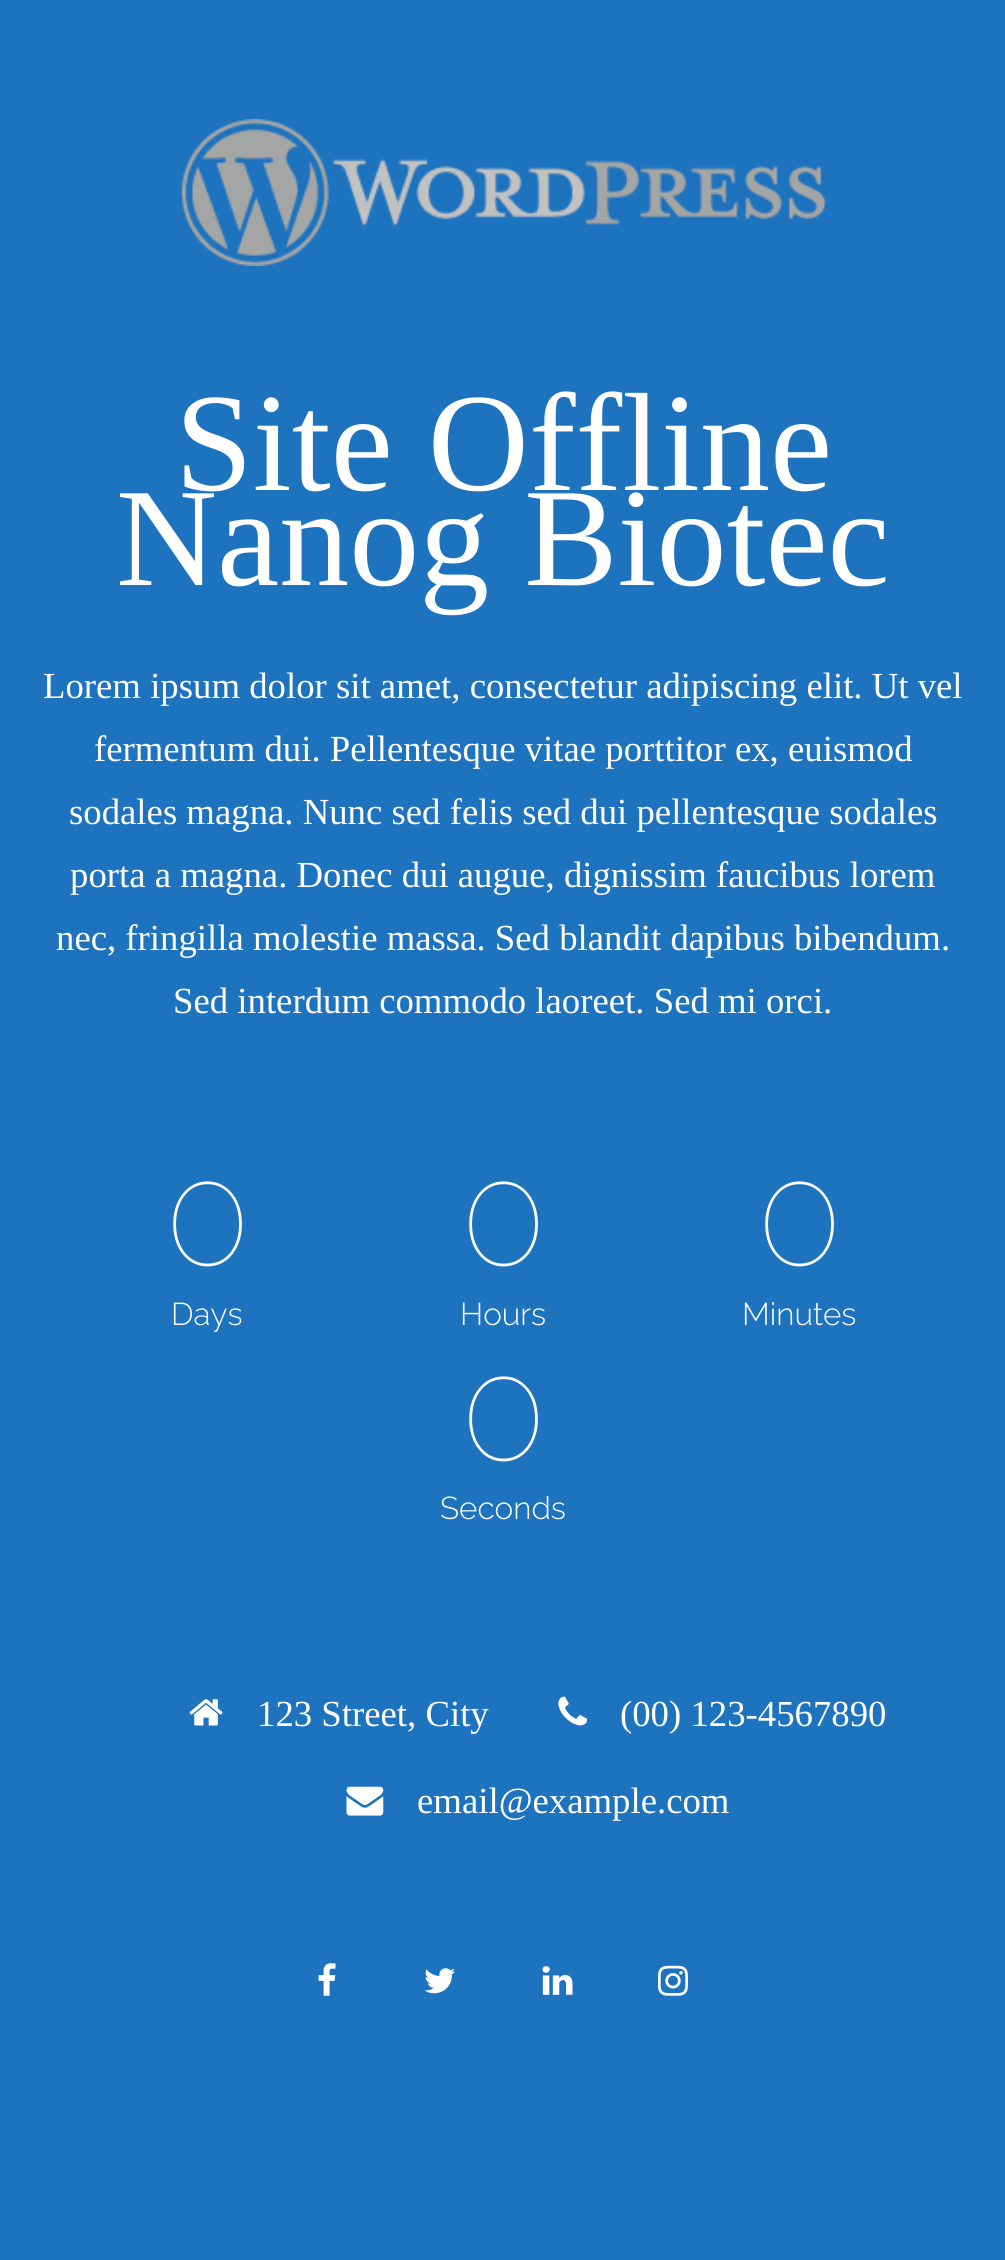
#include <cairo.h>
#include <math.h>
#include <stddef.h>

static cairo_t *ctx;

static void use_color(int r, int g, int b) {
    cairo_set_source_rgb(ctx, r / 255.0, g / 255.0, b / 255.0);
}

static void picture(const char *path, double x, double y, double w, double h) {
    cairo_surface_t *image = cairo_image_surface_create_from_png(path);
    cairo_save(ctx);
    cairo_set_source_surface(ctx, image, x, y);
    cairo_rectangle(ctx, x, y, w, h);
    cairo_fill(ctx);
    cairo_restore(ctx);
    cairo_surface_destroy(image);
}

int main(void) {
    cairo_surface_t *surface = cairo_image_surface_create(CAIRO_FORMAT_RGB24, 1005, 2260);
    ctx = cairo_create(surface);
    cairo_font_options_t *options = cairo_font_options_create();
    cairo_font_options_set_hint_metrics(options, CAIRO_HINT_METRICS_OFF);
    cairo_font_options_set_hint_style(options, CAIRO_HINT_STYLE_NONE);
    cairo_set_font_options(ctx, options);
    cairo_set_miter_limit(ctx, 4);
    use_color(30, 115, 190);
    cairo_paint(ctx);
    picture("img1.png", 181, 119, 645, 147);
    cairo_select_font_face(ctx, "Liberation Serif", CAIRO_FONT_SLANT_NORMAL, CAIRO_FONT_WEIGHT_NORMAL);
    cairo_set_font_size(ctx, 140);
    use_color(255, 255, 255);
    cairo_move_to(ctx, 175, 490);
    cairo_show_text(ctx, "Site Offline");
    cairo_move_to(ctx, 116, 585);
    cairo_show_text(ctx, "Nanog Biotec");
    cairo_set_font_size(ctx, 36.75);
    cairo_move_to(ctx, 43, 698);
    cairo_show_text(ctx, "Lorem ipsum dolor sit amet, consectetur adipiscing elit. Ut vel");
    cairo_move_to(ctx, 94, 761);
    cairo_show_text(ctx, "fermentum dui. Pellentesque vitae porttitor ex, euismod");
    cairo_move_to(ctx, 69, 824);
    cairo_show_text(ctx, "sodales magna. Nunc sed felis sed dui pellentesque sodales");
    cairo_move_to(ctx, 70, 887);
    cairo_show_text(ctx, "porta a magna. Donec dui augue, dignissim faucibus lorem");
    cairo_move_to(ctx, 56, 950);
    cairo_show_text(ctx, "nec, fringilla molestie massa. Sed blandit dapibus bibendum.");
    cairo_move_to(ctx, 173, 1013);
    cairo_show_text(ctx, "Sed interdum commodo laoreet. Sed mi orci.");
    cairo_select_font_face(ctx, "Raleway Thin", CAIRO_FONT_SLANT_NORMAL, CAIRO_FONT_WEIGHT_NORMAL);
    cairo_set_font_size(ctx, 140);
    cairo_move_to(ctx, 165, 1265);
    cairo_show_text(ctx, "0");
    cairo_select_font_face(ctx, "Raleway Light", CAIRO_FONT_SLANT_NORMAL, CAIRO_FONT_WEIGHT_NORMAL);
    cairo_set_font_size(ctx, 31.5);
    cairo_move_to(ctx, 171, 1325);
    cairo_show_text(ctx, "Days");
    cairo_select_font_face(ctx, "Raleway Thin", CAIRO_FONT_SLANT_NORMAL, CAIRO_FONT_WEIGHT_NORMAL);
    cairo_set_font_size(ctx, 140);
    cairo_move_to(ctx, 461, 1265);
    cairo_show_text(ctx, "0");
    cairo_select_font_face(ctx, "Raleway Light", CAIRO_FONT_SLANT_NORMAL, CAIRO_FONT_WEIGHT_NORMAL);
    cairo_set_font_size(ctx, 31.5);
    cairo_move_to(ctx, 460, 1325);
    cairo_show_text(ctx, "Hours");
    cairo_select_font_face(ctx, "Raleway Thin", CAIRO_FONT_SLANT_NORMAL, CAIRO_FONT_WEIGHT_NORMAL);
    cairo_set_font_size(ctx, 140);
    cairo_move_to(ctx, 757, 1265);
    cairo_show_text(ctx, "0");
    cairo_select_font_face(ctx, "Raleway Light", CAIRO_FONT_SLANT_NORMAL, CAIRO_FONT_WEIGHT_NORMAL);
    cairo_set_font_size(ctx, 31.5);
    cairo_move_to(ctx, 742, 1325);
    cairo_show_text(ctx, "Minutes");
    cairo_select_font_face(ctx, "Raleway Thin", CAIRO_FONT_SLANT_NORMAL, CAIRO_FONT_WEIGHT_NORMAL);
    cairo_set_font_size(ctx, 140);
    cairo_move_to(ctx, 461, 1460);
    cairo_show_text(ctx, "0");
    cairo_select_font_face(ctx, "Raleway Light", CAIRO_FONT_SLANT_NORMAL, CAIRO_FONT_WEIGHT_NORMAL);
    cairo_set_font_size(ctx, 31.5);
    cairo_move_to(ctx, 440, 1519);
    cairo_show_text(ctx, "Seconds");
    picture("img2.png", 189, 1699, 34, 27);
    cairo_select_font_face(ctx, "Liberation Serif", CAIRO_FONT_SLANT_NORMAL, CAIRO_FONT_WEIGHT_NORMAL);
    cairo_set_font_size(ctx, 36.75);
    cairo_move_to(ctx, 257, 1726);
    cairo_show_text(ctx, "123 Street, City");
    picture("img3.png", 558, 1696, 30, 30);
    cairo_move_to(ctx, 620, 1726);
    cairo_show_text(ctx, "(00) 123-4567890");
    picture("img4.png", 346, 1786, 38, 30);
    cairo_move_to(ctx, 417, 1813);
    cairo_show_text(ctx, "email@example.com");
    picture("img5.png", 318, 1963, 18, 33);
    picture("img6.png", 424, 1968, 31, 26);
    picture("img7.png", 542, 1966, 31, 29);
    picture("img8.png", 658, 1965, 30, 31);
    cairo_surface_write_to_png(surface, "result.png");
    cairo_font_options_destroy(options);
    cairo_destroy(ctx);
    cairo_surface_destroy(surface);
    return 0;
}
